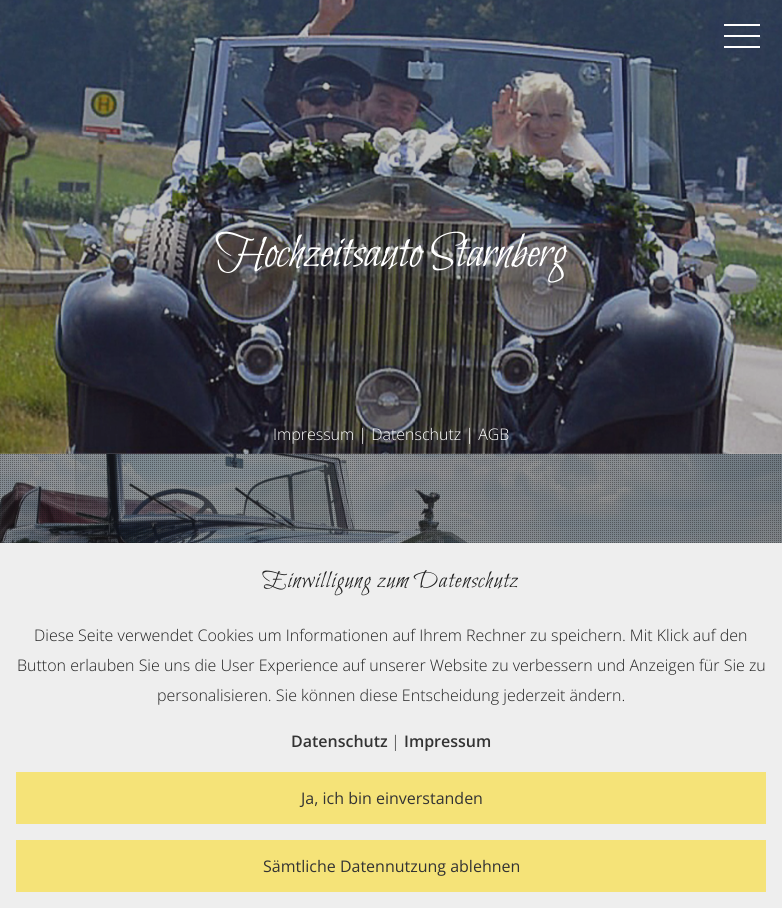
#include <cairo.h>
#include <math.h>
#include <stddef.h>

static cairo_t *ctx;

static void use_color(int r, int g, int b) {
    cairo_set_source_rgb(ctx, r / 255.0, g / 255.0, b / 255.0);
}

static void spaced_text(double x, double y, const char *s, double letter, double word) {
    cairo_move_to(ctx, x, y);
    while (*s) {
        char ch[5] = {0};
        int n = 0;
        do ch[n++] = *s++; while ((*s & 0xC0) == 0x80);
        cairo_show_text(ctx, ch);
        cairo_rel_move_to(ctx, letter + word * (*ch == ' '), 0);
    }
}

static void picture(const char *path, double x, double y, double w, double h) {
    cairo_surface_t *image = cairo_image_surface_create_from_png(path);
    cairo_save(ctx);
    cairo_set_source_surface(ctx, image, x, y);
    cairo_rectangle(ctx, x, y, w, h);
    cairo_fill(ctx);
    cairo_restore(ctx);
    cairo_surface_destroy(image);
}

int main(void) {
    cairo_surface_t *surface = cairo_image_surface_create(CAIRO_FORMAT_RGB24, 782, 908);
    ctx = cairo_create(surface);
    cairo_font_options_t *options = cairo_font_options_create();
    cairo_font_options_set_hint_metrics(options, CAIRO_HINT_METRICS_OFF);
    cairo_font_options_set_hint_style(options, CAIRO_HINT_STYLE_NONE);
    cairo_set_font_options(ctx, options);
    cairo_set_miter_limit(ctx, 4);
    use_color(255, 255, 255);
    cairo_paint(ctx);
    picture("img1.png", 0, 0, 782, 454);
    use_color(255, 255, 255);
    cairo_rectangle(ctx, 724, 24, 36, 2);
    cairo_fill(ctx);
    cairo_rectangle(ctx, 724, 35, 36, 2);
    cairo_fill(ctx);
    cairo_rectangle(ctx, 724, 46, 36, 2);
    cairo_fill(ctx);
    cairo_select_font_face(ctx, "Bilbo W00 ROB", CAIRO_FONT_SLANT_NORMAL, CAIRO_FONT_WEIGHT_NORMAL);
    cairo_set_font_size(ctx, 50);
    cairo_move_to(ctx, 216, 266);
    cairo_show_text(ctx, "Hochzeitsauto Starnberg");
    cairo_select_font_face(ctx, "Open Sans Light", CAIRO_FONT_SLANT_NORMAL, CAIRO_FONT_WEIGHT_NORMAL);
    cairo_set_font_size(ctx, 16);
    cairo_move_to(ctx, 273, 440);
    cairo_show_text(ctx, "Impressum | Datenschutz | AGB");
    picture("img2.png", 0, 454, 782, 89);
    picture("img3.png", 0, 454, 782, 89);
    use_color(238, 238, 238);
    cairo_rectangle(ctx, 0, 543, 782, 365);
    cairo_fill(ctx);
    cairo_select_font_face(ctx, "Bilbo W00 ROB", CAIRO_FONT_SLANT_NORMAL, CAIRO_FONT_WEIGHT_NORMAL);
    cairo_set_font_size(ctx, 25);
    use_color(33, 33, 33);
    spaced_text(263, 587, "Einwilligung zum Datenschutz", 1, 0);
    cairo_select_font_face(ctx, "Open Sans Light", CAIRO_FONT_SLANT_NORMAL, CAIRO_FONT_WEIGHT_NORMAL);
    cairo_set_font_size(ctx, 16);
    cairo_move_to(ctx, 34, 641);
    cairo_show_text(ctx, "Diese Seite verwendet Cookies um Informationen auf Ihrem Rechner zu speichern. Mit Klick auf den");
    cairo_move_to(ctx, 17, 671);
    cairo_show_text(ctx, "Button erlauben Sie uns die User Experience auf unserer Website zu verbessern und Anzeigen für Sie zu");
    cairo_move_to(ctx, 157, 701);
    cairo_show_text(ctx, "personalisieren. Sie können diese Entscheidung jederzeit ändern.");
    cairo_select_font_face(ctx, "Open Sans SemiBold", CAIRO_FONT_SLANT_NORMAL, CAIRO_FONT_WEIGHT_NORMAL);
    use_color(51, 51, 51);
    cairo_move_to(ctx, 291, 747);
    cairo_show_text(ctx, "Datenschutz");
    cairo_select_font_face(ctx, "Open Sans Light", CAIRO_FONT_SLANT_NORMAL, CAIRO_FONT_WEIGHT_NORMAL);
    use_color(33, 33, 33);
    cairo_move_to(ctx, 391, 747);
    cairo_show_text(ctx, "|");
    cairo_select_font_face(ctx, "Open Sans SemiBold", CAIRO_FONT_SLANT_NORMAL, CAIRO_FONT_WEIGHT_NORMAL);
    use_color(51, 51, 51);
    cairo_move_to(ctx, 404, 747);
    cairo_show_text(ctx, "Impressum");
    use_color(245, 227, 120);
    cairo_rectangle(ctx, 16, 772, 750, 52);
    cairo_fill(ctx);
    cairo_select_font_face(ctx, "Open Sans", CAIRO_FONT_SLANT_NORMAL, CAIRO_FONT_WEIGHT_NORMAL);
    use_color(51, 51, 51);
    cairo_move_to(ctx, 301, 804);
    cairo_show_text(ctx, "Ja, ich bin einverstanden");
    use_color(245, 227, 120);
    cairo_rectangle(ctx, 16, 840, 750, 52);
    cairo_fill(ctx);
    use_color(51, 51, 51);
    cairo_move_to(ctx, 263, 872);
    cairo_show_text(ctx, "Sämtliche Datennutzung ablehnen");
    cairo_surface_write_to_png(surface, "result.png");
    cairo_font_options_destroy(options);
    cairo_destroy(ctx);
    cairo_surface_destroy(surface);
    return 0;
}
